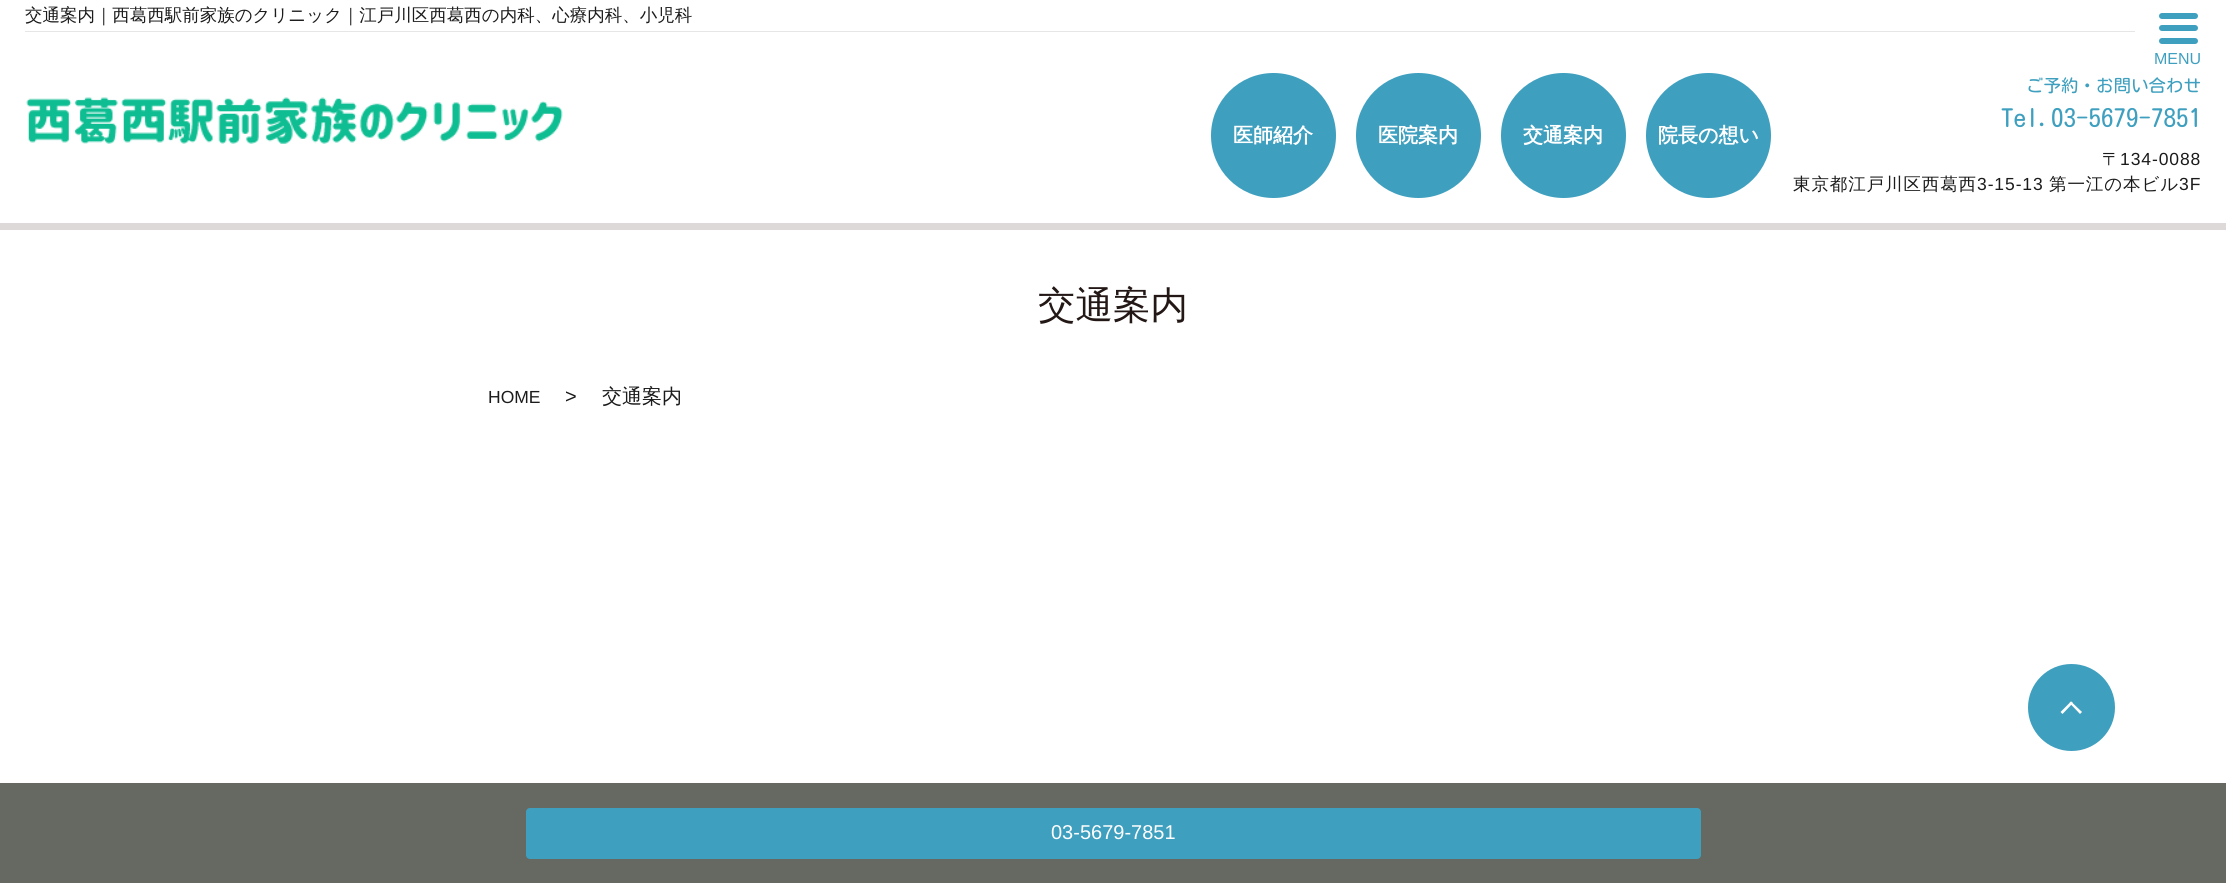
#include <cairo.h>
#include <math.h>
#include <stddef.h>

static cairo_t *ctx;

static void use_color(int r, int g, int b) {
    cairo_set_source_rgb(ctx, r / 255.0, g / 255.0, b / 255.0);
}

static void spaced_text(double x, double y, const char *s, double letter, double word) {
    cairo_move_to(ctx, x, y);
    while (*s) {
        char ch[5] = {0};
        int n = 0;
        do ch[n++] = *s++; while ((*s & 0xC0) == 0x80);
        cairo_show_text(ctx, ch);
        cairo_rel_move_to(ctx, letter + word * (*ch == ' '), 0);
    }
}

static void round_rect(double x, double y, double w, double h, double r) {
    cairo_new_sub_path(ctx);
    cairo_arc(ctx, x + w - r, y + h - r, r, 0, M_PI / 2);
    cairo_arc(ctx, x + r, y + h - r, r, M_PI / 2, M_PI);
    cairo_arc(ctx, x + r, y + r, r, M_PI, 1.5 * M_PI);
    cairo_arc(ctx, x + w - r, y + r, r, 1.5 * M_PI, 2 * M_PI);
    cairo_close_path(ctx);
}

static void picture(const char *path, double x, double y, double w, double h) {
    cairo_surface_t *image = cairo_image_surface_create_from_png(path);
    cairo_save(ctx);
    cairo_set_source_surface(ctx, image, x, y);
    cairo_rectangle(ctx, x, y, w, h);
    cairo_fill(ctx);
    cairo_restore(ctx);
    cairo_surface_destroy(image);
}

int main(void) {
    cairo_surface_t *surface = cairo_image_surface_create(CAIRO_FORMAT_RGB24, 2226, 883);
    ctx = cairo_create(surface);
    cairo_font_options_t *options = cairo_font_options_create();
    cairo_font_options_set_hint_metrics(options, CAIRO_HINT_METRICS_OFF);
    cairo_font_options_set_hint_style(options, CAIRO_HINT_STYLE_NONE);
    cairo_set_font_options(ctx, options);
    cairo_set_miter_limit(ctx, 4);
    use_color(255, 255, 255);
    cairo_paint(ctx);
    use_color(222, 217, 217);
    cairo_rectangle(ctx, 0, 223, 2226, 7);
    cairo_fill(ctx);
    use_color(230, 230, 230);
    cairo_rectangle(ctx, 25, 31, 2110, 1);
    cairo_fill(ctx);
    cairo_select_font_face(ctx, "WenQuanYi Zen Hei Medium", CAIRO_FONT_SLANT_NORMAL, CAIRO_FONT_WEIGHT_NORMAL);
    cairo_set_font_size(ctx, 17.5);
    use_color(27, 27, 27);
    cairo_move_to(ctx, 25, 21);
    cairo_show_text(ctx, "交通案内｜西葛西駅前家族のクリニック｜江戸川区西葛西の内科、心療内科、小児科");
    picture("img1.png", 26, 97, 537, 47);
    use_color(62, 159, 191);
    cairo_arc(ctx, 1273.5, 135.5, 62.5, 0, 2 * M_PI);
    cairo_fill(ctx);
    cairo_select_font_face(ctx, "WenQuanYi Zen Hei", CAIRO_FONT_SLANT_NORMAL, CAIRO_FONT_WEIGHT_BOLD);
    cairo_set_font_size(ctx, 20);
    use_color(255, 255, 255);
    cairo_move_to(ctx, 1233, 142);
    cairo_show_text(ctx, "医師紹介");
    use_color(62, 159, 191);
    cairo_new_path(ctx);
    cairo_arc(ctx, 1418.5, 135.5, 62.5, 0, 2 * M_PI);
    cairo_fill(ctx);
    use_color(255, 255, 255);
    cairo_move_to(ctx, 1378, 142);
    cairo_show_text(ctx, "医院案内");
    use_color(62, 159, 191);
    cairo_new_path(ctx);
    cairo_arc(ctx, 1563.5, 135.5, 62.5, 0, 2 * M_PI);
    cairo_fill(ctx);
    use_color(255, 255, 255);
    cairo_move_to(ctx, 1523, 142);
    cairo_show_text(ctx, "交通案内");
    use_color(62, 159, 191);
    cairo_new_path(ctx);
    cairo_arc(ctx, 1708.5, 135.5, 62.5, 0, 2 * M_PI);
    cairo_fill(ctx);
    use_color(255, 255, 255);
    cairo_move_to(ctx, 1658, 142);
    cairo_show_text(ctx, "院長の想い");
    use_color(62, 159, 191);
    round_rect(2159, 13, 39, 6, 3);
    cairo_fill(ctx);
    round_rect(2159, 25, 39, 6, 3);
    cairo_fill(ctx);
    round_rect(2159, 38, 39, 6, 3);
    cairo_fill(ctx);
    cairo_select_font_face(ctx, "Liberation Sans", CAIRO_FONT_SLANT_NORMAL, CAIRO_FONT_WEIGHT_NORMAL);
    cairo_set_font_size(ctx, 16);
    cairo_move_to(ctx, 2154, 64);
    cairo_show_text(ctx, "MENU");
    cairo_select_font_face(ctx, "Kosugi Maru", CAIRO_FONT_SLANT_NORMAL, CAIRO_FONT_WEIGHT_NORMAL);
    cairo_set_font_size(ctx, 17.5);
    cairo_move_to(ctx, 2026, 92);
    cairo_show_text(ctx, "ご予約・お問い合わせ");
    cairo_set_font_size(ctx, 25);
    cairo_move_to(ctx, 2001, 127);
    cairo_show_text(ctx, "Tel.03-5679-7851");
    cairo_select_font_face(ctx, "WenQuanYi Zen Hei Medium", CAIRO_FONT_SLANT_NORMAL, CAIRO_FONT_WEIGHT_NORMAL);
    cairo_set_font_size(ctx, 17.5);
    use_color(27, 27, 27);
    spaced_text(2102, 165, "〒", 0.9, 0);
    cairo_select_font_face(ctx, "Liberation Sans", CAIRO_FONT_SLANT_NORMAL, CAIRO_FONT_WEIGHT_NORMAL);
    spaced_text(2120, 165, "134-0088", 0.9, 0);
    cairo_select_font_face(ctx, "WenQuanYi Zen Hei Medium", CAIRO_FONT_SLANT_NORMAL, CAIRO_FONT_WEIGHT_NORMAL);
    spaced_text(1793, 190, "東京都江戸川区西葛西", 0.9, 0);
    cairo_select_font_face(ctx, "Liberation Sans", CAIRO_FONT_SLANT_NORMAL, CAIRO_FONT_WEIGHT_NORMAL);
    spaced_text(1977, 190, "3-15-13", 0.9, 0);
    cairo_select_font_face(ctx, "WenQuanYi Zen Hei Medium", CAIRO_FONT_SLANT_NORMAL, CAIRO_FONT_WEIGHT_NORMAL);
    spaced_text(2049, 190, "第一江の本ビル", 0.9, 0);
    cairo_select_font_face(ctx, "Liberation Sans", CAIRO_FONT_SLANT_NORMAL, CAIRO_FONT_WEIGHT_NORMAL);
    spaced_text(2179, 190, "3F", 0.9, 0);
    cairo_select_font_face(ctx, "WenQuanYi Zen Hei Medium", CAIRO_FONT_SLANT_NORMAL, CAIRO_FONT_WEIGHT_NORMAL);
    cairo_set_font_size(ctx, 37.5);
    use_color(35, 24, 21);
    cairo_move_to(ctx, 1038, 318);
    cairo_show_text(ctx, "交通案内");
    cairo_select_font_face(ctx, "Liberation Sans", CAIRO_FONT_SLANT_NORMAL, CAIRO_FONT_WEIGHT_NORMAL);
    cairo_set_font_size(ctx, 17.5);
    use_color(27, 27, 27);
    cairo_move_to(ctx, 488, 403);
    cairo_show_text(ctx, "HOME");
    cairo_set_font_size(ctx, 20);
    cairo_move_to(ctx, 565, 403);
    cairo_show_text(ctx, ">");
    cairo_select_font_face(ctx, "WenQuanYi Zen Hei Medium", CAIRO_FONT_SLANT_NORMAL, CAIRO_FONT_WEIGHT_NORMAL);
    cairo_move_to(ctx, 602, 403);
    cairo_show_text(ctx, "交通案内");
    use_color(62, 159, 191);
    cairo_new_path(ctx);
    cairo_arc(ctx, 2071.5, 707.5, 43.5, 0, 2 * M_PI);
    cairo_fill(ctx);
    use_color(255, 255, 255);
    cairo_new_path(ctx);
    cairo_move_to(ctx, 2071, 701.5);
    cairo_line_to(ctx, 2082, 712);
    cairo_line_to(ctx, 2080, 714);
    cairo_line_to(ctx, 2069.5, 703);
    cairo_close_path(ctx);
    cairo_fill(ctx);
    cairo_new_path(ctx);
    cairo_move_to(ctx, 2071, 701.5);
    cairo_line_to(ctx, 2073, 703);
    cairo_line_to(ctx, 2062.5, 714);
    cairo_line_to(ctx, 2060.5, 712);
    cairo_close_path(ctx);
    cairo_fill(ctx);
    use_color(101, 105, 98);
    cairo_rectangle(ctx, 0, 783, 2226, 100);
    cairo_fill(ctx);
    use_color(62, 159, 191);
    round_rect(526, 808, 1175, 51, 4);
    cairo_fill(ctx);
    cairo_select_font_face(ctx, "Liberation Sans", CAIRO_FONT_SLANT_NORMAL, CAIRO_FONT_WEIGHT_NORMAL);
    use_color(255, 255, 255);
    cairo_move_to(ctx, 1051, 839);
    cairo_show_text(ctx, "03-5679-7851");
    cairo_surface_write_to_png(surface, "result.png");
    cairo_font_options_destroy(options);
    cairo_destroy(ctx);
    cairo_surface_destroy(surface);
    return 0;
}
